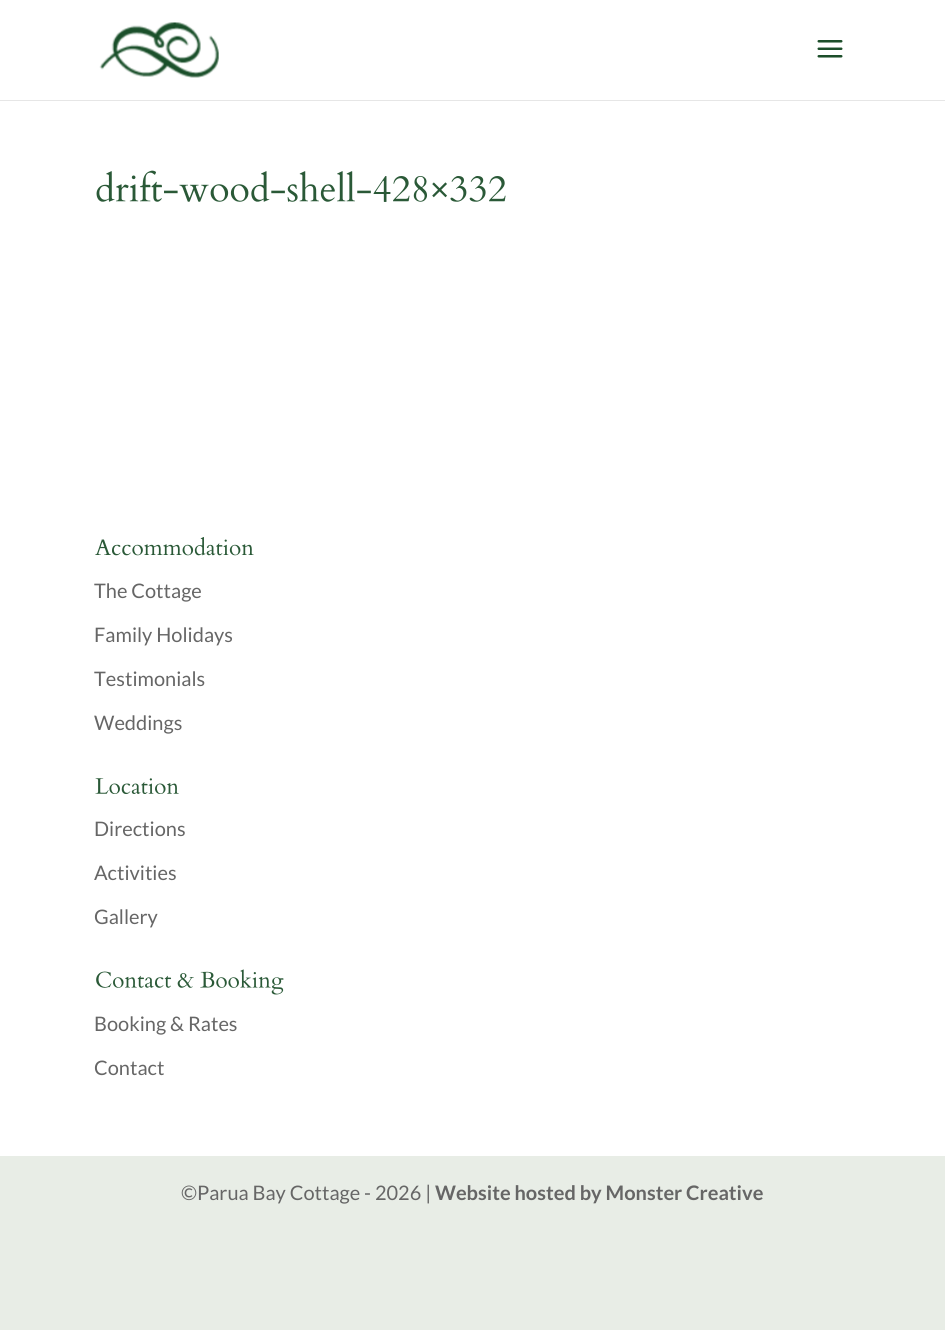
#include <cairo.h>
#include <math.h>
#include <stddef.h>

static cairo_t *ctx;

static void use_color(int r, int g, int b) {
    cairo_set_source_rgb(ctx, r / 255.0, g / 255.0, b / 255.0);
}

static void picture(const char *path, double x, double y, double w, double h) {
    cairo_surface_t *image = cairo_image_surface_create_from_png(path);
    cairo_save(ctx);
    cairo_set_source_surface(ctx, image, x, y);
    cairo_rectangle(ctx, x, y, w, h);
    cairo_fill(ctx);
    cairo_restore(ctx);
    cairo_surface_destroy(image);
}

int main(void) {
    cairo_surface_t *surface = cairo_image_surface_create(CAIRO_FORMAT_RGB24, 945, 1330);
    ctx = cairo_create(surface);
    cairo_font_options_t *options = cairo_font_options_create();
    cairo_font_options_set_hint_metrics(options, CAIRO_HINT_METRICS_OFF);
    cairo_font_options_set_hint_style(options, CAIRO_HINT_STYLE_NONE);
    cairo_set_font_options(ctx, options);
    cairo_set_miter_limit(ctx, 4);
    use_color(232, 237, 230);
    cairo_paint(ctx);
    use_color(230, 230, 230);
    cairo_rectangle(ctx, 0, 100, 945, 1);
    cairo_fill(ctx);
    use_color(255, 255, 255);
    cairo_rectangle(ctx, 0, 0, 945, 100);
    cairo_fill(ctx);
    picture("img1.png", 99, 22, 120, 56);
    picture("img2.png", 817, 40, 26, 18);
    cairo_rectangle(ctx, 0, 101, 945, 1055);
    cairo_fill(ctx);
    picture("img3.png", 96, 170, 410, 32);
    picture("img4.png", 95, 537, 159, 19);
    cairo_select_font_face(ctx, "Lato", CAIRO_FONT_SLANT_NORMAL, CAIRO_FONT_WEIGHT_NORMAL);
    cairo_set_font_size(ctx, 20);
    use_color(102, 102, 102);
    cairo_move_to(ctx, 94, 598);
    cairo_show_text(ctx, "The Cottage");
    cairo_move_to(ctx, 94, 642);
    cairo_show_text(ctx, "Family Holidays");
    cairo_move_to(ctx, 94, 686);
    cairo_show_text(ctx, "Testimonials");
    cairo_move_to(ctx, 94, 730);
    cairo_show_text(ctx, "Weddings");
    picture("img5.png", 95, 778, 84, 16);
    cairo_move_to(ctx, 94, 836);
    cairo_show_text(ctx, "Directions");
    cairo_move_to(ctx, 94, 880);
    cairo_show_text(ctx, "Activities");
    cairo_move_to(ctx, 94, 924);
    cairo_show_text(ctx, "Gallery");
    picture("img6.png", 96, 969, 188, 26);
    cairo_move_to(ctx, 94, 1031);
    cairo_show_text(ctx, "Booking & Rates");
    cairo_move_to(ctx, 94, 1075);
    cairo_show_text(ctx, "Contact");
    cairo_move_to(ctx, 181, 1200);
    cairo_show_text(ctx, "©Parua Bay Cottage - 2026 |");
    cairo_select_font_face(ctx, "Lato", CAIRO_FONT_SLANT_NORMAL, CAIRO_FONT_WEIGHT_BOLD);
    cairo_move_to(ctx, 435, 1200);
    cairo_show_text(ctx, "Website hosted by Monster Creative");
    cairo_surface_write_to_png(surface, "result.png");
    cairo_font_options_destroy(options);
    cairo_destroy(ctx);
    cairo_surface_destroy(surface);
    return 0;
}
